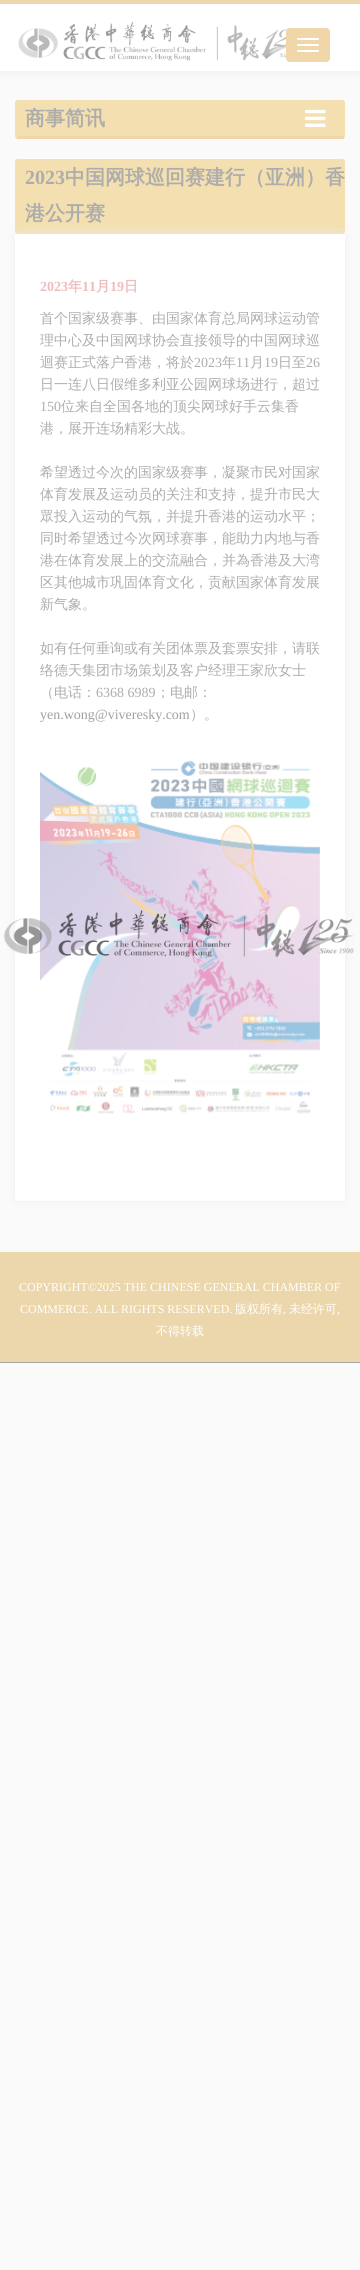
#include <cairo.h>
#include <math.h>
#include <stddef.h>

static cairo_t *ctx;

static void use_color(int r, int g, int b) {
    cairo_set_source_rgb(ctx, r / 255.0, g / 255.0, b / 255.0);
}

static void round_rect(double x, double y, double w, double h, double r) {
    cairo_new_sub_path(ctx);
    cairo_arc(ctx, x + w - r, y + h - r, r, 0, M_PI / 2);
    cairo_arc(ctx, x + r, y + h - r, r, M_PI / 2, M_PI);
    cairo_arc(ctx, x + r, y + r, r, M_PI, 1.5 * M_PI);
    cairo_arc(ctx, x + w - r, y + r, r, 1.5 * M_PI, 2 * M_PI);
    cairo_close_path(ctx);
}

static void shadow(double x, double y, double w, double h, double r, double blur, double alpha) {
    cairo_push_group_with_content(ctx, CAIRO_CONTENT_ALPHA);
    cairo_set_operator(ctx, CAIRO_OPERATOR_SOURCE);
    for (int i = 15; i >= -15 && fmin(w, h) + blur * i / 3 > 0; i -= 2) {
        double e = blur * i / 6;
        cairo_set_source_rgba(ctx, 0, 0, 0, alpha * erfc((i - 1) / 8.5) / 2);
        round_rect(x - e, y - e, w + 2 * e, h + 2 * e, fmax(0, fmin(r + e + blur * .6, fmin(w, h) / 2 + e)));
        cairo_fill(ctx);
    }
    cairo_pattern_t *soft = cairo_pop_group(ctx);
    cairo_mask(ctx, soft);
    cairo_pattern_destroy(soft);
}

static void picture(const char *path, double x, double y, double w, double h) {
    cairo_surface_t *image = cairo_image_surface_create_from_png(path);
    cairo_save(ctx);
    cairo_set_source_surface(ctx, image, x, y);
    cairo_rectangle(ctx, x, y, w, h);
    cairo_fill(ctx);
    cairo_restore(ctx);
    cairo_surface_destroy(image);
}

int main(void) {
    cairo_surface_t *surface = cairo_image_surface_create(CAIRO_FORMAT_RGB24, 360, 2270);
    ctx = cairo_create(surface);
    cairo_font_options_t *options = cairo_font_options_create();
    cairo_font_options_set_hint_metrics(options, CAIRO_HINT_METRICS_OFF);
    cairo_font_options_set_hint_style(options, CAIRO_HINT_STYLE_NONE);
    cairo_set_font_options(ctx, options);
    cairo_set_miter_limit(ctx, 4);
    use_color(250, 250, 250);
    cairo_paint(ctx);
    use_color(235, 235, 235);
    shadow(0, 0, 360, 71, 0, 5, 1);
    use_color(255, 255, 255);
    cairo_rectangle(ctx, 0, 4, 360, 67);
    cairo_fill(ctx);
    use_color(236, 215, 172);
    cairo_rectangle(ctx, 0, 0, 360, 4);
    cairo_fill(ctx);
    picture("img1.png", 18, 21, 270, 40);
    use_color(241, 214, 170);
    round_rect(286, 28, 44, 34, 4);
    cairo_fill(ctx);
    use_color(255, 255, 255);
    round_rect(297, 38, 22, 2, 1);
    cairo_fill(ctx);
    round_rect(297, 44, 22, 2, 1);
    cairo_fill(ctx);
    round_rect(297, 50, 22, 2, 1);
    cairo_fill(ctx);
    use_color(243, 223, 175);
    round_rect(15, 100, 330, 39, 3);
    cairo_fill(ctx);
    use_color(241, 214, 170);
    cairo_rectangle(ctx, 17, 136, 327, 3);
    cairo_fill(ctx);
    cairo_select_font_face(ctx, "WenQuanYi Zen Hei", CAIRO_FONT_SLANT_NORMAL, CAIRO_FONT_WEIGHT_BOLD);
    cairo_set_font_size(ctx, 20);
    use_color(173, 173, 173);
    cairo_move_to(ctx, 25, 125);
    cairo_show_text(ctx, "商事简讯");
    picture("img2.png", 305, 109, 21, 18);
    use_color(243, 223, 175);
    round_rect(15, 159, 330, 75, 3);
    cairo_fill(ctx);
    use_color(241, 214, 170);
    cairo_rectangle(ctx, 17, 231, 327, 3);
    cairo_fill(ctx);
    cairo_select_font_face(ctx, "Liberation Serif", CAIRO_FONT_SLANT_NORMAL, CAIRO_FONT_WEIGHT_BOLD);
    use_color(173, 173, 173);
    cairo_move_to(ctx, 25, 184);
    cairo_show_text(ctx, "2023");
    cairo_select_font_face(ctx, "WenQuanYi Zen Hei", CAIRO_FONT_SLANT_NORMAL, CAIRO_FONT_WEIGHT_BOLD);
    cairo_move_to(ctx, 65, 184);
    cairo_show_text(ctx, "中国网球巡回赛建行（亚洲）香");
    use_color(241, 241, 241);
    shadow(15, 234, 330, 967, 3, 5, 1);
    use_color(173, 173, 173);
    cairo_move_to(ctx, 25, 220);
    cairo_show_text(ctx, "港公开赛");
    use_color(255, 255, 255);
    cairo_new_path(ctx);
    cairo_move_to(ctx, 15, 234);
    cairo_line_to(ctx, 345, 234);
    cairo_line_to(ctx, 345, 1198);
    cairo_curve_to(ctx, 345, 1199.5, 343.5, 1201, 342, 1201);
    cairo_line_to(ctx, 18, 1201);
    cairo_curve_to(ctx, 16.5, 1201, 15, 1199.5, 15, 1198);
    cairo_close_path(ctx);
    cairo_fill(ctx);
    cairo_select_font_face(ctx, "Liberation Serif", CAIRO_FONT_SLANT_NORMAL, CAIRO_FONT_WEIGHT_BOLD);
    cairo_set_font_size(ctx, 14);
    use_color(239, 189, 189);
    cairo_move_to(ctx, 40, 291);
    cairo_show_text(ctx, "2023");
    cairo_select_font_face(ctx, "WenQuanYi Zen Hei", CAIRO_FONT_SLANT_NORMAL, CAIRO_FONT_WEIGHT_BOLD);
    cairo_move_to(ctx, 68, 291);
    cairo_show_text(ctx, "年");
    cairo_select_font_face(ctx, "Liberation Serif", CAIRO_FONT_SLANT_NORMAL, CAIRO_FONT_WEIGHT_BOLD);
    cairo_move_to(ctx, 82, 291);
    cairo_show_text(ctx, "11");
    cairo_select_font_face(ctx, "WenQuanYi Zen Hei", CAIRO_FONT_SLANT_NORMAL, CAIRO_FONT_WEIGHT_BOLD);
    cairo_move_to(ctx, 96, 291);
    cairo_show_text(ctx, "月");
    cairo_select_font_face(ctx, "Liberation Serif", CAIRO_FONT_SLANT_NORMAL, CAIRO_FONT_WEIGHT_BOLD);
    cairo_move_to(ctx, 110, 291);
    cairo_show_text(ctx, "19");
    cairo_select_font_face(ctx, "WenQuanYi Zen Hei", CAIRO_FONT_SLANT_NORMAL, CAIRO_FONT_WEIGHT_BOLD);
    cairo_move_to(ctx, 124, 291);
    cairo_show_text(ctx, "日");
    cairo_select_font_face(ctx, "WenQuanYi Zen Hei Medium", CAIRO_FONT_SLANT_NORMAL, CAIRO_FONT_WEIGHT_NORMAL);
    use_color(173, 173, 173);
    cairo_move_to(ctx, 40, 323);
    cairo_show_text(ctx, "首个国家级赛事、由国家体育总局网球运动管");
    cairo_move_to(ctx, 40, 345);
    cairo_show_text(ctx, "理中心及中国网球协会直接领导的中国网球巡");
    cairo_move_to(ctx, 40, 367);
    cairo_show_text(ctx, "迴赛正式落户香港，将於");
    cairo_select_font_face(ctx, "Liberation Serif", CAIRO_FONT_SLANT_NORMAL, CAIRO_FONT_WEIGHT_NORMAL);
    cairo_move_to(ctx, 194, 367);
    cairo_show_text(ctx, "2023");
    cairo_select_font_face(ctx, "WenQuanYi Zen Hei Medium", CAIRO_FONT_SLANT_NORMAL, CAIRO_FONT_WEIGHT_NORMAL);
    cairo_move_to(ctx, 222, 367);
    cairo_show_text(ctx, "年");
    cairo_select_font_face(ctx, "Liberation Serif", CAIRO_FONT_SLANT_NORMAL, CAIRO_FONT_WEIGHT_NORMAL);
    cairo_move_to(ctx, 236, 367);
    cairo_show_text(ctx, "11");
    cairo_select_font_face(ctx, "WenQuanYi Zen Hei Medium", CAIRO_FONT_SLANT_NORMAL, CAIRO_FONT_WEIGHT_NORMAL);
    cairo_move_to(ctx, 250, 367);
    cairo_show_text(ctx, "月");
    cairo_select_font_face(ctx, "Liberation Serif", CAIRO_FONT_SLANT_NORMAL, CAIRO_FONT_WEIGHT_NORMAL);
    cairo_move_to(ctx, 264, 367);
    cairo_show_text(ctx, "19");
    cairo_select_font_face(ctx, "WenQuanYi Zen Hei Medium", CAIRO_FONT_SLANT_NORMAL, CAIRO_FONT_WEIGHT_NORMAL);
    cairo_move_to(ctx, 278, 367);
    cairo_show_text(ctx, "日至");
    cairo_select_font_face(ctx, "Liberation Serif", CAIRO_FONT_SLANT_NORMAL, CAIRO_FONT_WEIGHT_NORMAL);
    cairo_move_to(ctx, 306, 367);
    cairo_show_text(ctx, "26");
    cairo_select_font_face(ctx, "WenQuanYi Zen Hei Medium", CAIRO_FONT_SLANT_NORMAL, CAIRO_FONT_WEIGHT_NORMAL);
    cairo_move_to(ctx, 40, 389);
    cairo_show_text(ctx, "日一连八日假维多利亚公园网球场进行，超过");
    cairo_select_font_face(ctx, "Liberation Serif", CAIRO_FONT_SLANT_NORMAL, CAIRO_FONT_WEIGHT_NORMAL);
    cairo_move_to(ctx, 40, 411);
    cairo_show_text(ctx, "150");
    cairo_select_font_face(ctx, "WenQuanYi Zen Hei Medium", CAIRO_FONT_SLANT_NORMAL, CAIRO_FONT_WEIGHT_NORMAL);
    cairo_move_to(ctx, 61, 411);
    cairo_show_text(ctx, "位来自全国各地的顶尖网球好手云集香");
    cairo_move_to(ctx, 40, 433);
    cairo_show_text(ctx, "港，展开连场精彩大战。");
    cairo_move_to(ctx, 40, 477);
    cairo_show_text(ctx, "希望透过今次的国家级赛事，凝聚市民对国家");
    cairo_move_to(ctx, 40, 499);
    cairo_show_text(ctx, "体育发展及运动员的关注和支持，提升市民大");
    cairo_move_to(ctx, 40, 521);
    cairo_show_text(ctx, "眾投入运动的气氛，并提升香港的运动水平；");
    cairo_move_to(ctx, 40, 543);
    cairo_show_text(ctx, "同时希望透过今次网球赛事，能助力内地与香");
    cairo_move_to(ctx, 40, 565);
    cairo_show_text(ctx, "港在体育发展上的交流融合，并為香港及大湾");
    cairo_move_to(ctx, 40, 587);
    cairo_show_text(ctx, "区其他城市巩固体育文化，贡献国家体育发展");
    cairo_move_to(ctx, 40, 609);
    cairo_show_text(ctx, "新气象。");
    cairo_move_to(ctx, 40, 653);
    cairo_show_text(ctx, "如有任何垂询或有关团体票及套票安排，请联");
    cairo_move_to(ctx, 40, 675);
    cairo_show_text(ctx, "络德天集团市场策划及客户经理王家欣女士");
    cairo_move_to(ctx, 40, 697);
    cairo_show_text(ctx, "（电话：");
    cairo_select_font_face(ctx, "Liberation Serif", CAIRO_FONT_SLANT_NORMAL, CAIRO_FONT_WEIGHT_NORMAL);
    cairo_move_to(ctx, 96, 697);
    cairo_show_text(ctx, "6368 6989");
    cairo_select_font_face(ctx, "WenQuanYi Zen Hei Medium", CAIRO_FONT_SLANT_NORMAL, CAIRO_FONT_WEIGHT_NORMAL);
    cairo_move_to(ctx, 156, 697);
    cairo_show_text(ctx, "；电邮：");
    cairo_select_font_face(ctx, "Liberation Serif", CAIRO_FONT_SLANT_NORMAL, CAIRO_FONT_WEIGHT_NORMAL);
    use_color(160, 160, 160);
    cairo_move_to(ctx, 40, 719);
    cairo_show_text(ctx, "yen.wong@viveresky.com");
    cairo_select_font_face(ctx, "WenQuanYi Zen Hei Medium", CAIRO_FONT_SLANT_NORMAL, CAIRO_FONT_WEIGHT_NORMAL);
    use_color(173, 173, 173);
    cairo_move_to(ctx, 190, 719);
    cairo_show_text(ctx, "）。");
    picture("img3.png", 40, 760, 280, 354);
    use_color(247, 247, 247);
    cairo_rectangle(ctx, 0, 1251, 360, 1);
    cairo_fill(ctx);
    use_color(236, 215, 172);
    cairo_rectangle(ctx, 0, 1252, 360, 110);
    cairo_fill(ctx);
    cairo_select_font_face(ctx, "Liberation Serif", CAIRO_FONT_SLANT_NORMAL, CAIRO_FONT_WEIGHT_NORMAL);
    cairo_set_font_size(ctx, 12);
    use_color(255, 255, 255);
    cairo_move_to(ctx, 19, 1291);
    cairo_show_text(ctx, "COPYRIGHT©2025 THE CHINESE GENERAL CHAMBER OF");
    cairo_move_to(ctx, 20, 1313);
    cairo_show_text(ctx, "COMMERCE. ALL RIGHTS RESERVED.");
    cairo_select_font_face(ctx, "WenQuanYi Zen Hei Medium", CAIRO_FONT_SLANT_NORMAL, CAIRO_FONT_WEIGHT_NORMAL);
    cairo_move_to(ctx, 235, 1313);
    cairo_show_text(ctx, "版权所有");
    cairo_select_font_face(ctx, "Liberation Serif", CAIRO_FONT_SLANT_NORMAL, CAIRO_FONT_WEIGHT_NORMAL);
    cairo_move_to(ctx, 283, 1313);
    cairo_show_text(ctx, ",");
    cairo_select_font_face(ctx, "WenQuanYi Zen Hei Medium", CAIRO_FONT_SLANT_NORMAL, CAIRO_FONT_WEIGHT_NORMAL);
    cairo_move_to(ctx, 289, 1313);
    cairo_show_text(ctx, "未经许可");
    cairo_select_font_face(ctx, "Liberation Serif", CAIRO_FONT_SLANT_NORMAL, CAIRO_FONT_WEIGHT_NORMAL);
    cairo_move_to(ctx, 337, 1313);
    cairo_show_text(ctx, ",");
    cairo_select_font_face(ctx, "WenQuanYi Zen Hei Medium", CAIRO_FONT_SLANT_NORMAL, CAIRO_FONT_WEIGHT_NORMAL);
    cairo_move_to(ctx, 156, 1335);
    cairo_show_text(ctx, "不得转载");
    use_color(166, 166, 166);
    cairo_rectangle(ctx, 0, 1362, 360, 1);
    cairo_fill(ctx);
    picture("img4.png", 4, 910, 350, 48);
    cairo_surface_write_to_png(surface, "result.png");
    cairo_font_options_destroy(options);
    cairo_destroy(ctx);
    cairo_surface_destroy(surface);
    return 0;
}
